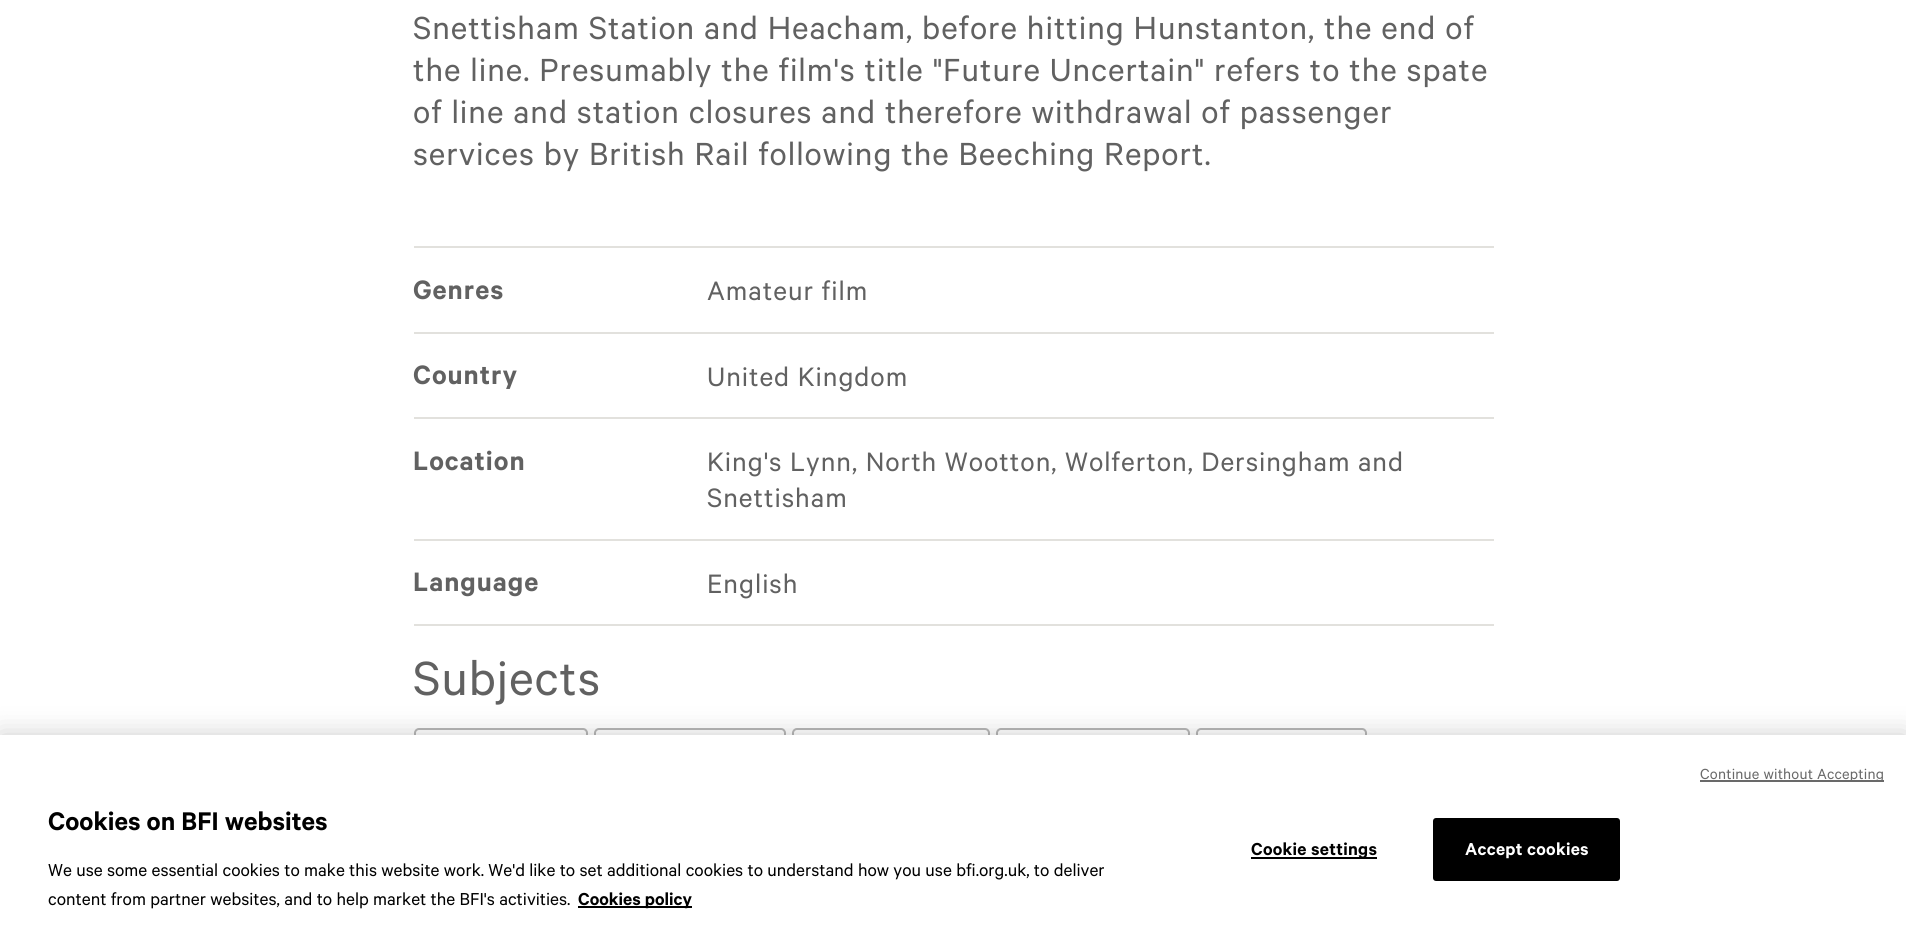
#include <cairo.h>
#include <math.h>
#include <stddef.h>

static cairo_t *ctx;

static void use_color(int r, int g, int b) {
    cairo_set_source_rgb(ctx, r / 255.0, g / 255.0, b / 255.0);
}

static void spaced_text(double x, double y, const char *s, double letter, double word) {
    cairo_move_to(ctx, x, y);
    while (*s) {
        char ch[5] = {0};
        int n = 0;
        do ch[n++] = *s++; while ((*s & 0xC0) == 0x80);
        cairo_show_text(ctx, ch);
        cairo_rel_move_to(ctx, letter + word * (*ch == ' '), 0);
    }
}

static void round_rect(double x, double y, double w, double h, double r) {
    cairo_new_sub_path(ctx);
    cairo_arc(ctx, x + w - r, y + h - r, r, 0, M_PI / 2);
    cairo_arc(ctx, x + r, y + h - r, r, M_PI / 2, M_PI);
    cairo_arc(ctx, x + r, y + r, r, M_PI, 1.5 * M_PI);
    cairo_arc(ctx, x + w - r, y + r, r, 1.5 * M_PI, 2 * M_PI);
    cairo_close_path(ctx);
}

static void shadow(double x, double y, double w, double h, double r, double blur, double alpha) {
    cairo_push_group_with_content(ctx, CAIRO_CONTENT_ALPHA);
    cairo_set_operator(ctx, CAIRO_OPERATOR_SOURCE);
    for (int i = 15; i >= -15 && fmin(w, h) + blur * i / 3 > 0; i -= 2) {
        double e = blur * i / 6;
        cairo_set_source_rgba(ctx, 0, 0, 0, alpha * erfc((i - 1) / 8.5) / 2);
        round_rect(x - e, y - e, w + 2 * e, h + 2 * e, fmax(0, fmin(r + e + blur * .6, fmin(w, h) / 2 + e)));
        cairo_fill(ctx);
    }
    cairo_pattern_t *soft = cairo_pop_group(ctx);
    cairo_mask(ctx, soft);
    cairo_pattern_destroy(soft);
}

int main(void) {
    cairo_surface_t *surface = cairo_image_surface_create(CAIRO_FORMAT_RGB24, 1906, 928);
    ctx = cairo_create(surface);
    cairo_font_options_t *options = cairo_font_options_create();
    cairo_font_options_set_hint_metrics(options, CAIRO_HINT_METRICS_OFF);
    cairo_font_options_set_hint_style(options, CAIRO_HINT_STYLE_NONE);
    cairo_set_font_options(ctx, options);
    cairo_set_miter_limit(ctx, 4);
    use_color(255, 255, 255);
    cairo_paint(ctx);
    cairo_select_font_face(ctx, "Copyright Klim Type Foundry", CAIRO_FONT_SLANT_NORMAL, CAIRO_FONT_WEIGHT_NORMAL);
    cairo_set_font_size(ctx, 36);
    use_color(97, 97, 97);
    spaced_text(413, 39, "Snettisham Station and Heacham, before hitting Hunstanton, the end of", 0.95, 0);
    spaced_text(413, 81, "the line. Presumably the film's title \"Future Uncertain\" refers to the spate", 0.95, 0);
    spaced_text(413, 123, "of line and station closures and therefore withdrawal of passenger", 0.95, 0);
    spaced_text(413, 165, "services by British Rail following the Beeching Report.", 0.95, 0);
    use_color(226, 225, 221);
    cairo_rectangle(ctx, 414, 246, 1080, 2);
    cairo_fill(ctx);
    cairo_rectangle(ctx, 414, 332, 1080, 2);
    cairo_fill(ctx);
    cairo_select_font_face(ctx, "Copyright Klim Type Foundry SemiBold", CAIRO_FONT_SLANT_NORMAL, CAIRO_FONT_WEIGHT_NORMAL);
    cairo_set_font_size(ctx, 30);
    use_color(97, 97, 97);
    spaced_text(413, 299, "Genres", 0.95, 0);
    cairo_select_font_face(ctx, "Copyright Klim Type Foundry", CAIRO_FONT_SLANT_NORMAL, CAIRO_FONT_WEIGHT_NORMAL);
    spaced_text(707, 300, "Amateur film", 0.95, 0);
    use_color(226, 225, 221);
    cairo_rectangle(ctx, 414, 417, 1080, 2);
    cairo_fill(ctx);
    cairo_select_font_face(ctx, "Copyright Klim Type Foundry SemiBold", CAIRO_FONT_SLANT_NORMAL, CAIRO_FONT_WEIGHT_NORMAL);
    use_color(97, 97, 97);
    spaced_text(413, 384, "Country", 0.95, 0);
    cairo_select_font_face(ctx, "Copyright Klim Type Foundry", CAIRO_FONT_SLANT_NORMAL, CAIRO_FONT_WEIGHT_NORMAL);
    spaced_text(707, 386, "United Kingdom", 0.95, 0);
    use_color(226, 225, 221);
    cairo_rectangle(ctx, 414, 539, 1080, 2);
    cairo_fill(ctx);
    cairo_select_font_face(ctx, "Copyright Klim Type Foundry SemiBold", CAIRO_FONT_SLANT_NORMAL, CAIRO_FONT_WEIGHT_NORMAL);
    use_color(97, 97, 97);
    spaced_text(413, 470, "Location", 0.95, 0);
    cairo_select_font_face(ctx, "Copyright Klim Type Foundry", CAIRO_FONT_SLANT_NORMAL, CAIRO_FONT_WEIGHT_NORMAL);
    spaced_text(707, 471, "King's Lynn, North Wootton, Wolferton, Dersingham and", 0.95, 0);
    spaced_text(707, 507, "Snettisham", 0.95, 0);
    use_color(226, 225, 221);
    cairo_rectangle(ctx, 414, 624, 1080, 2);
    cairo_fill(ctx);
    cairo_select_font_face(ctx, "Copyright Klim Type Foundry SemiBold", CAIRO_FONT_SLANT_NORMAL, CAIRO_FONT_WEIGHT_NORMAL);
    use_color(97, 97, 97);
    spaced_text(413, 591, "Language", 0.95, 0);
    cairo_select_font_face(ctx, "Copyright Klim Type Foundry", CAIRO_FONT_SLANT_NORMAL, CAIRO_FONT_WEIGHT_NORMAL);
    spaced_text(707, 593, "English", 0.95, 0);
    cairo_set_font_size(ctx, 54);
    spaced_text(413, 695, "Subjects", 0.95, 0);
    round_rect(415, 729, 172, 37, 4);
    use_color(184, 184, 184);
    cairo_stroke(ctx);
    round_rect(595, 729, 190, 37, 4);
    cairo_stroke(ctx);
    round_rect(793, 729, 196, 37, 4);
    cairo_stroke(ctx);
    round_rect(997, 729, 192, 37, 4);
    cairo_stroke(ctx);
    round_rect(1197, 729, 169, 37, 4);
    cairo_stroke(ctx);
    use_color(0, 0, 0);
    shadow(0, 735, 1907, 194, 0, 13.5, 0.2);
    use_color(255, 255, 255);
    cairo_rectangle(ctx, 0, 735, 1906, 193);
    cairo_fill(ctx);
    use_color(105, 105, 105);
    cairo_rectangle(ctx, 1700, 780, 184, 2);
    cairo_fill(ctx);
    cairo_set_font_size(ctx, 16.5);
    spaced_text(1700, 779, "Continue without Accepting", 0.2, 0);
    cairo_select_font_face(ctx, "Copyright Klim Type Foundry SemiBold", CAIRO_FONT_SLANT_NORMAL, CAIRO_FONT_WEIGHT_NORMAL);
    cairo_set_font_size(ctx, 28.75);
    use_color(0, 0, 0);
    cairo_move_to(ctx, 48, 830);
    cairo_show_text(ctx, "Cookies on BFI websites");
    cairo_select_font_face(ctx, "Copyright Klim Type Foundry", CAIRO_FONT_SLANT_NORMAL, CAIRO_FONT_WEIGHT_NORMAL);
    cairo_set_font_size(ctx, 19.5);
    cairo_move_to(ctx, 48, 876);
    cairo_show_text(ctx, "We use some essential cookies to make this website work. We'd like to set additional cookies to understand how you use bfi.org.uk, to deliver");
    cairo_move_to(ctx, 48, 905);
    cairo_show_text(ctx, "content from partner websites, and to help market the BFI's activities.");
    cairo_rectangle(ctx, 578, 906, 114, 2);
    cairo_fill(ctx);
    cairo_select_font_face(ctx, "Copyright Klim Type Foundry SemiBold", CAIRO_FONT_SLANT_NORMAL, CAIRO_FONT_WEIGHT_NORMAL);
    cairo_move_to(ctx, 578, 905);
    cairo_show_text(ctx, "Cookies policy");
    cairo_rectangle(ctx, 1251, 857, 126, 2);
    cairo_fill(ctx);
    spaced_text(1251, 855, "Cookie settings", 0.25, 0);
    round_rect(1434, 819, 185, 61, 2);
    cairo_fill_preserve(ctx);
    cairo_stroke(ctx);
    use_color(255, 255, 255);
    spaced_text(1465, 855, "Accept cookies", 0.25, 0);
    cairo_surface_write_to_png(surface, "result.png");
    cairo_font_options_destroy(options);
    cairo_destroy(ctx);
    cairo_surface_destroy(surface);
    return 0;
}
